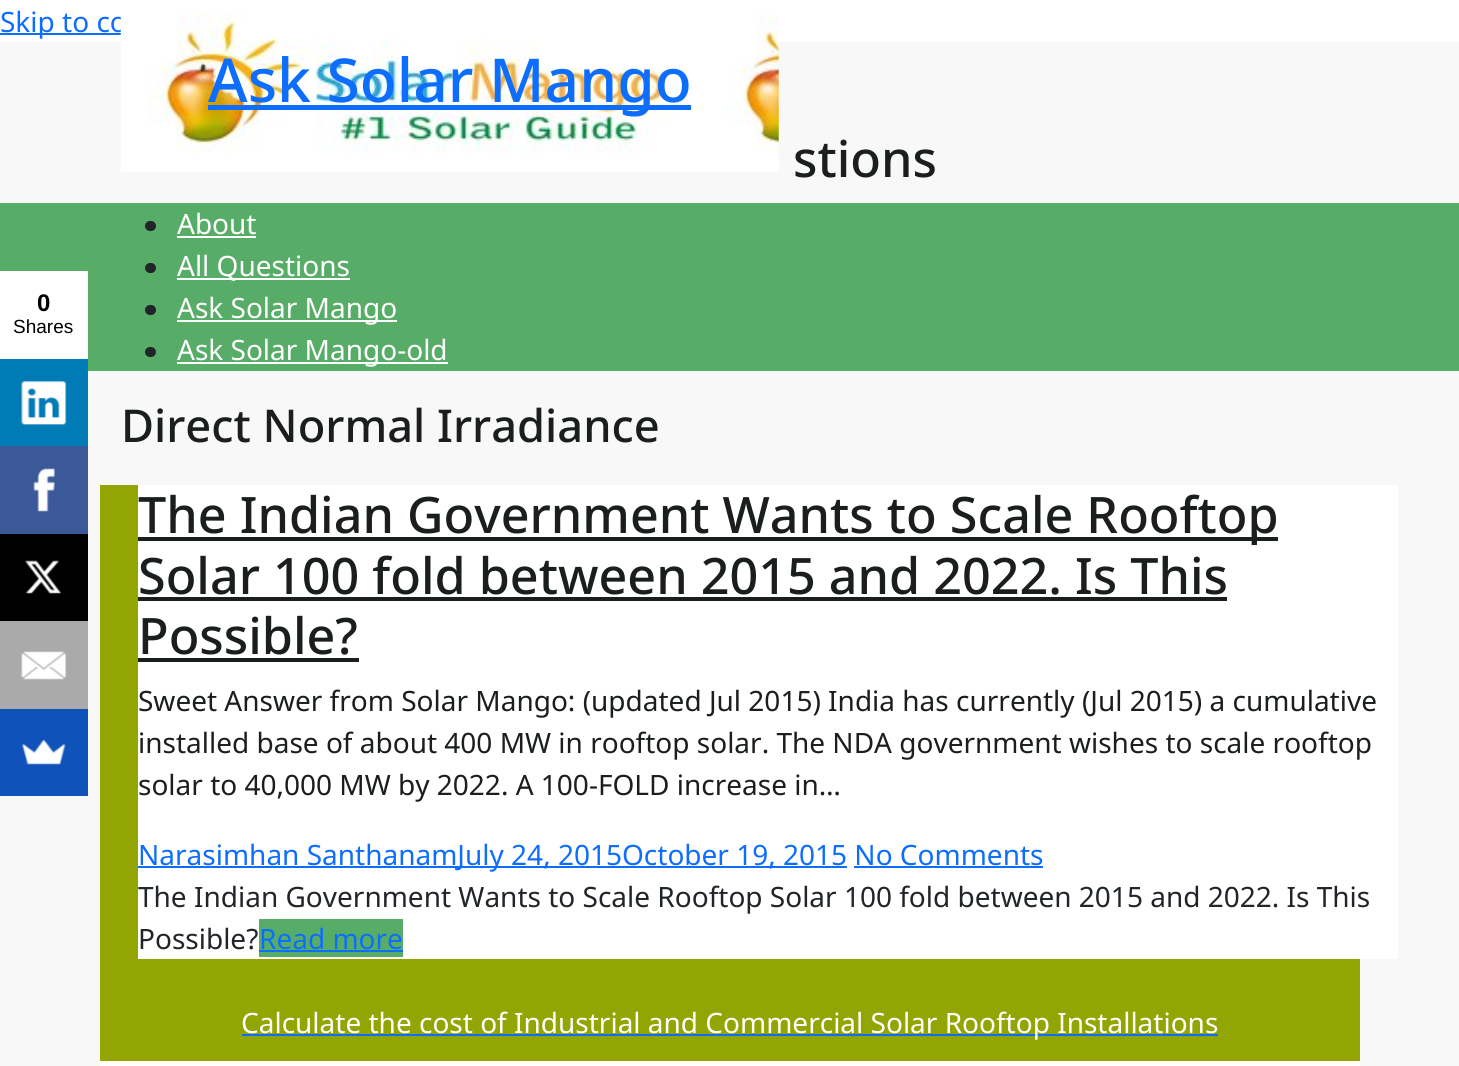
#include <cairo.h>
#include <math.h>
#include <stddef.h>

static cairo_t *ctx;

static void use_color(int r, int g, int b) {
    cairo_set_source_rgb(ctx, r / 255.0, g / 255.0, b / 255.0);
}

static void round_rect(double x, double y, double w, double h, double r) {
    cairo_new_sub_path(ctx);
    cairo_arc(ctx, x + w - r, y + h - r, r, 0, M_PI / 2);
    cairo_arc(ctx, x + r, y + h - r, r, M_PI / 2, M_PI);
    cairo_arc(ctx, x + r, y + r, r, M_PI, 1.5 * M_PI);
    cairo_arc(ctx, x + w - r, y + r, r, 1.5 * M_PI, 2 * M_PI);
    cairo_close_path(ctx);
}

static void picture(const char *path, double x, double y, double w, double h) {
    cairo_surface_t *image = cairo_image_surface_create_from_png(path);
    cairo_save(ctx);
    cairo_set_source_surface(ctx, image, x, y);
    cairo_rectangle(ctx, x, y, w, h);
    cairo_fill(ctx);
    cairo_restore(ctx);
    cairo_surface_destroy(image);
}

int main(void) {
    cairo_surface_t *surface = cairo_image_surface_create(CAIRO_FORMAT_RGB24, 1459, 1066);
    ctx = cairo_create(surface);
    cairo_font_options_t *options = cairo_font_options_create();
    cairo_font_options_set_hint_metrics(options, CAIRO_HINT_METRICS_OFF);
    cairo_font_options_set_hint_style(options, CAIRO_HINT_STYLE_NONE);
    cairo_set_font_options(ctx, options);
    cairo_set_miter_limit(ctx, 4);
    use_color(255, 255, 255);
    cairo_paint(ctx);
    use_color(13, 110, 253);
    cairo_rectangle(ctx, 0, 33, 121, 2);
    cairo_fill(ctx);
    cairo_select_font_face(ctx, "Noto Sans", CAIRO_FONT_SLANT_NORMAL, CAIRO_FONT_WEIGHT_NORMAL);
    cairo_set_font_size(ctx, 28);
    cairo_move_to(ctx, 0, 32);
    cairo_show_text(ctx, "Skip to co");
    use_color(248, 248, 248);
    cairo_rectangle(ctx, 0, 42, 1459, 1024);
    cairo_fill(ctx);
    use_color(87, 173, 104);
    cairo_rectangle(ctx, 0, 203, 1459, 168);
    cairo_fill(ctx);
    use_color(255, 255, 255);
    cairo_rectangle(ctx, 0, 271, 88, 88);
    cairo_fill(ctx);
    cairo_select_font_face(ctx, "Liberation Sans", CAIRO_FONT_SLANT_NORMAL, CAIRO_FONT_WEIGHT_BOLD);
    cairo_set_font_size(ctx, 24);
    use_color(0, 0, 0);
    cairo_move_to(ctx, 37, 311);
    cairo_show_text(ctx, "0");
    cairo_select_font_face(ctx, "Liberation Sans", CAIRO_FONT_SLANT_NORMAL, CAIRO_FONT_WEIGHT_NORMAL);
    cairo_set_font_size(ctx, 19);
    cairo_move_to(ctx, 13, 333);
    cairo_show_text(ctx, "Shares");
    use_color(0, 123, 182);
    cairo_rectangle(ctx, 0, 359, 88, 87);
    cairo_fill(ctx);
    picture("img1.png", 21, 381, 46, 45);
    use_color(59, 89, 152);
    cairo_rectangle(ctx, 0, 446, 88, 88);
    cairo_fill(ctx);
    picture("img2.png", 33, 468, 22, 44);
    use_color(0, 0, 0);
    cairo_rectangle(ctx, 0, 534, 88, 87);
    cairo_fill(ctx);
    picture("img3.png", 25, 560, 36, 34);
    use_color(170, 170, 170);
    cairo_rectangle(ctx, 0, 621, 88, 88);
    cairo_fill(ctx);
    picture("img4.png", 21, 651, 46, 29);
    use_color(15, 82, 186);
    cairo_rectangle(ctx, 0, 709, 88, 87);
    cairo_fill(ctx);
    picture("img5.png", 22, 740, 44, 25);
    picture("img6.png", 120, 11, 659, 161);
    use_color(13, 110, 253);
    cairo_rectangle(ctx, 208, 105, 483, 5);
    cairo_fill(ctx);
    cairo_select_font_face(ctx, "Noto Sans Medium", CAIRO_FONT_SLANT_NORMAL, CAIRO_FONT_WEIGHT_NORMAL);
    cairo_set_font_size(ctx, 60.5);
    cairo_move_to(ctx, 208, 102);
    cairo_show_text(ctx, "Ask Solar Mango");
    cairo_set_font_size(ctx, 50.25);
    use_color(27, 30, 31);
    cairo_move_to(ctx, 793, 177);
    cairo_show_text(ctx, "stions");
    use_color(33, 37, 41);
    round_rect(145, 221, 11, 10, 5);
    cairo_fill(ctx);
    cairo_select_font_face(ctx, "Noto Sans", CAIRO_FONT_SLANT_NORMAL, CAIRO_FONT_WEIGHT_NORMAL);
    cairo_set_font_size(ctx, 28);
    use_color(255, 255, 255);
    cairo_move_to(ctx, 177, 234);
    cairo_show_text(ctx, "About");
    cairo_rectangle(ctx, 177, 236, 79, 2);
    cairo_fill(ctx);
    use_color(33, 37, 41);
    round_rect(145, 263, 11, 10, 5);
    cairo_fill(ctx);
    use_color(255, 255, 255);
    cairo_rectangle(ctx, 177, 278, 173, 2);
    cairo_fill(ctx);
    cairo_move_to(ctx, 177, 276);
    cairo_show_text(ctx, "All Questions");
    use_color(33, 37, 41);
    round_rect(145, 305, 11, 10, 5);
    cairo_fill(ctx);
    use_color(255, 255, 255);
    cairo_rectangle(ctx, 177, 320, 220, 2);
    cairo_fill(ctx);
    cairo_move_to(ctx, 177, 318);
    cairo_show_text(ctx, "Ask Solar Mango");
    use_color(33, 37, 41);
    round_rect(145, 347, 11, 10, 5);
    cairo_fill(ctx);
    use_color(255, 255, 255);
    cairo_rectangle(ctx, 177, 362, 271, 2);
    cairo_fill(ctx);
    cairo_move_to(ctx, 177, 360);
    cairo_show_text(ctx, "Ask Solar Mango-old");
    cairo_select_font_face(ctx, "Noto Sans Medium", CAIRO_FONT_SLANT_NORMAL, CAIRO_FONT_WEIGHT_NORMAL);
    cairo_set_font_size(ctx, 45.2);
    use_color(27, 30, 31);
    cairo_move_to(ctx, 121, 442);
    cairo_show_text(ctx, "Direct Normal Irradiance");
    use_color(147, 165, 3);
    cairo_rectangle(ctx, 100, 485, 1260, 576);
    cairo_fill(ctx);
    use_color(255, 255, 255);
    cairo_rectangle(ctx, 138, 485, 1260, 474);
    cairo_fill(ctx);
    use_color(27, 30, 31);
    cairo_rectangle(ctx, 138, 537, 1140, 4);
    cairo_fill(ctx);
    cairo_set_font_size(ctx, 50.25);
    cairo_move_to(ctx, 138, 533);
    cairo_show_text(ctx, "The Indian Government Wants to Scale Rooftop");
    cairo_move_to(ctx, 138, 594);
    cairo_show_text(ctx, "Solar 100 fold between 2015 and 2022. Is This");
    cairo_rectangle(ctx, 138, 597, 1089, 4);
    cairo_fill(ctx);
    cairo_move_to(ctx, 138, 654);
    cairo_show_text(ctx, "Possible?");
    cairo_rectangle(ctx, 138, 658, 221, 4);
    cairo_fill(ctx);
    cairo_select_font_face(ctx, "Noto Sans", CAIRO_FONT_SLANT_NORMAL, CAIRO_FONT_WEIGHT_NORMAL);
    cairo_set_font_size(ctx, 28);
    cairo_move_to(ctx, 138, 711);
    cairo_show_text(ctx, "Sweet Answer from Solar Mango: (updated Jul 2015) India has currently (Jul 2015) a cumulative");
    cairo_move_to(ctx, 138, 753);
    cairo_show_text(ctx, "installed base of about 400 MW in rooftop solar. The NDA government wishes to scale rooftop");
    cairo_move_to(ctx, 138, 795);
    cairo_show_text(ctx, "solar to 40,000 MW by 2022. A 100-FOLD increase in…");
    use_color(13, 110, 253);
    cairo_rectangle(ctx, 138, 866, 709, 2);
    cairo_fill(ctx);
    cairo_move_to(ctx, 138, 865);
    cairo_show_text(ctx, "Narasimhan SanthanamJuly 24, 2015October 19, 2015 No Comments");
    cairo_rectangle(ctx, 854, 866, 189, 2);
    cairo_fill(ctx);
    use_color(33, 37, 41);
    cairo_move_to(ctx, 138, 907);
    cairo_show_text(ctx, "The Indian Government Wants to Scale Rooftop Solar 100 fold between 2015 and 2022. Is This");
    cairo_move_to(ctx, 138, 949);
    cairo_show_text(ctx, "Possible?");
    use_color(87, 173, 104);
    cairo_rectangle(ctx, 259, 919, 144, 38);
    cairo_fill(ctx);
    use_color(13, 110, 253);
    cairo_move_to(ctx, 259, 949);
    cairo_show_text(ctx, "Read more");
    cairo_rectangle(ctx, 259, 950, 144, 2);
    cairo_fill(ctx);
    use_color(255, 255, 255);
    cairo_rectangle(ctx, 100, 1061, 1260, 5);
    cairo_fill(ctx);
    use_color(13, 110, 253);
    cairo_rectangle(ctx, 242, 1034, 976, 2);
    cairo_fill(ctx);
    use_color(255, 255, 255);
    cairo_move_to(ctx, 241, 1033);
    cairo_show_text(ctx, "Calculate the cost of Industrial and Commercial Solar Rooftop Installations");
    cairo_surface_write_to_png(surface, "result.png");
    cairo_font_options_destroy(options);
    cairo_destroy(ctx);
    cairo_surface_destroy(surface);
    return 0;
}
